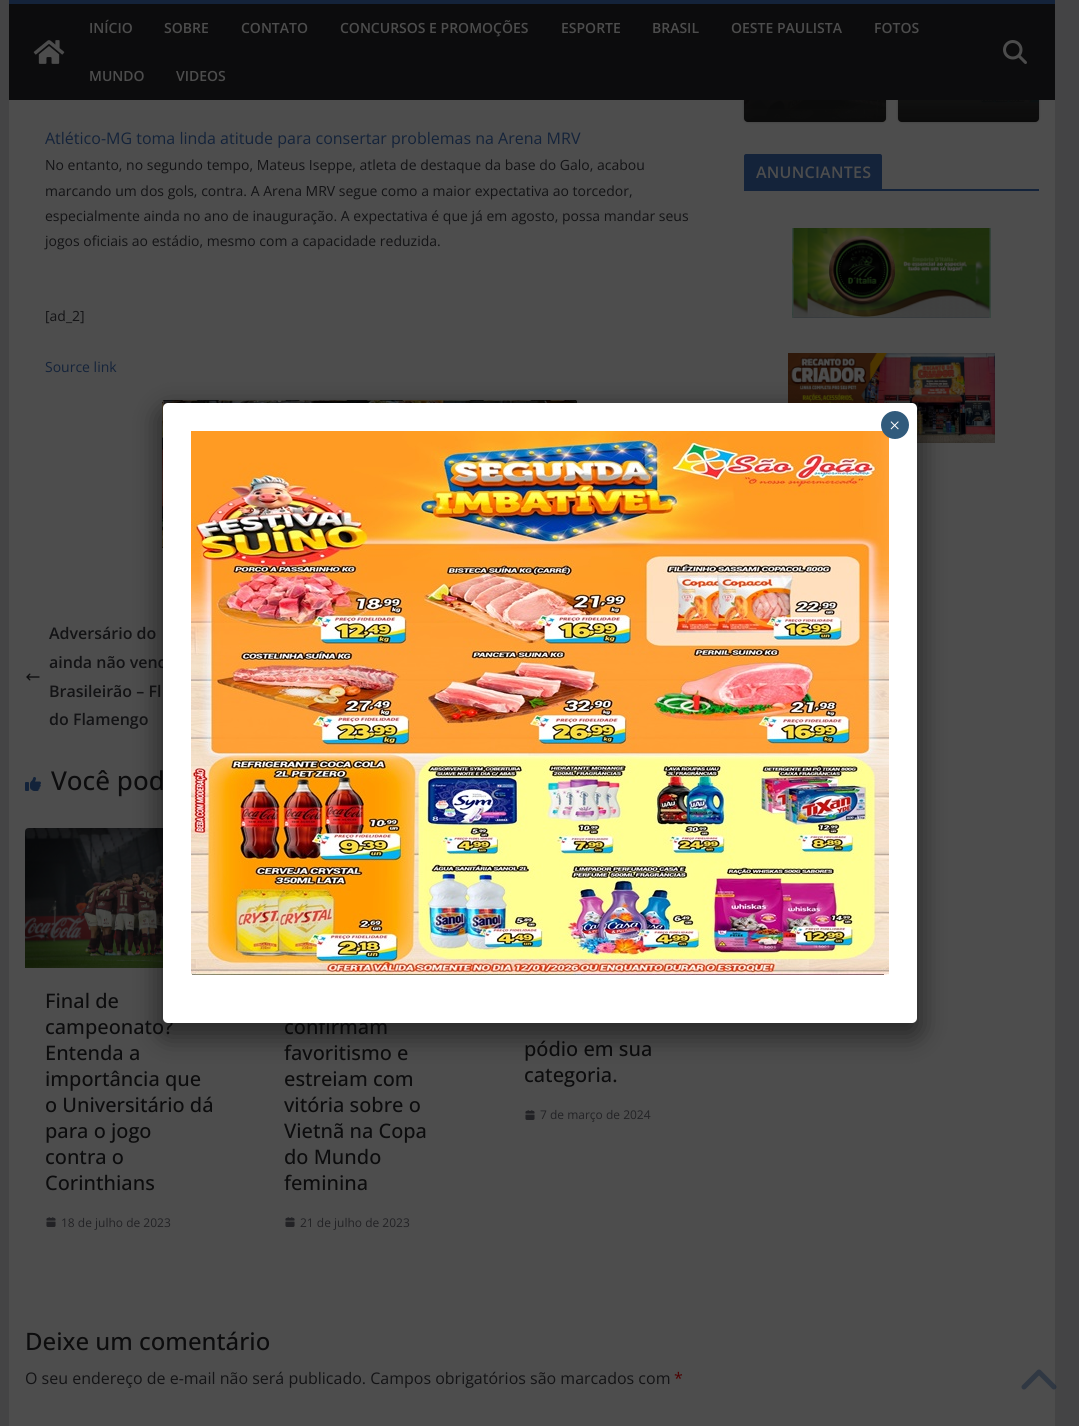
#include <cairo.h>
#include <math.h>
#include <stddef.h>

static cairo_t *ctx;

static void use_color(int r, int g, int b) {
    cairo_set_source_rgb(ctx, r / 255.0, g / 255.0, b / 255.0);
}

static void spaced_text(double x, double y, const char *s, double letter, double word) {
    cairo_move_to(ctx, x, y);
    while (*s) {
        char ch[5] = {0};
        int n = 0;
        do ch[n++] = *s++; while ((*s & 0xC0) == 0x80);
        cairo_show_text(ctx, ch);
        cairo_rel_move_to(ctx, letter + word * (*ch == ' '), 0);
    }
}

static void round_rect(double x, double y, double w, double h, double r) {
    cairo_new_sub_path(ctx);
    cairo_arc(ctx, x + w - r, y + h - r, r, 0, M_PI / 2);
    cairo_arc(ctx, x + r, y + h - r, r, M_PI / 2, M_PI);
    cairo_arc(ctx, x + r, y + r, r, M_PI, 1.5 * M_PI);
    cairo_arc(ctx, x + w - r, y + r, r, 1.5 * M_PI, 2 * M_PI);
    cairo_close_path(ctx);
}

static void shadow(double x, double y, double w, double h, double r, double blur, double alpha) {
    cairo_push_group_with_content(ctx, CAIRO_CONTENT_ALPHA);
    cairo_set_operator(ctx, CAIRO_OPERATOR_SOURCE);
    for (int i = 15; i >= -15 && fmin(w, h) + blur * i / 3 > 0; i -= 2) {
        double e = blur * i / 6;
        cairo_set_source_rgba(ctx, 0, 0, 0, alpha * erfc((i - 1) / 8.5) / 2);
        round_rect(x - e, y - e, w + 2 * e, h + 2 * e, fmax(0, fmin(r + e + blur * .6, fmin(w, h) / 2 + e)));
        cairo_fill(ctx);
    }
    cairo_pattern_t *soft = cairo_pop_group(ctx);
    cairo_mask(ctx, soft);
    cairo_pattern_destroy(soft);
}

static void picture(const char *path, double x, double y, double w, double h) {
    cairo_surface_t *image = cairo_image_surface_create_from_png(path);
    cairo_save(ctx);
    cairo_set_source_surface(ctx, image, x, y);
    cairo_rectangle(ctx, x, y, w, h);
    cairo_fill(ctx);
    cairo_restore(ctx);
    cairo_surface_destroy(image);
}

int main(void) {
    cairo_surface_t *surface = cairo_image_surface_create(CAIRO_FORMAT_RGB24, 1079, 1426);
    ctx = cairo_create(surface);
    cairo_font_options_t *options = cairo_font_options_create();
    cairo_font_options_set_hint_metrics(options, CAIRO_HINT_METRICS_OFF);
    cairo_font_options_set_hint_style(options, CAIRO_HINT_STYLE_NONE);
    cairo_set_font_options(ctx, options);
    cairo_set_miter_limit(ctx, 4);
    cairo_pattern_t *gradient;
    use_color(68, 68, 69);
    cairo_paint(ctx);
    use_color(77, 77, 77);
    cairo_rectangle(ctx, 9, 100, 1046, 1326);
    cairo_fill(ctx);
    use_color(0, 0, 0);
    shadow(744, 24, 142, 98, 4, 1, 0.24);
    picture("img8.png", 744, 100, 142, 22);
    gradient = cairo_pattern_create_linear(815, -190, 815, 122);
    cairo_pattern_add_color_stop_rgba(gradient, 0, 0.043, 0.043, 0.043, 0);
    cairo_pattern_add_color_stop_rgba(gradient, 1, 0.043, 0.043, 0.043, 1);
    cairo_set_source(ctx, gradient);
    cairo_pattern_destroy(gradient);
    round_rect(744, 24, 142, 98, 4);
    cairo_fill(ctx);
    use_color(0, 0, 0);
    shadow(898, 24, 141, 98, 4, 1, 0.24);
    picture("img9.png", 898, 100, 141, 22);
    gradient = cairo_pattern_create_linear(969, -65, 969, 122);
    cairo_pattern_add_color_stop_rgba(gradient, 0, 0.043, 0.043, 0.043, 0);
    cairo_pattern_add_color_stop_rgba(gradient, 1, 0.043, 0.043, 0.043, 1);
    cairo_set_source(ctx, gradient);
    cairo_pattern_destroy(gradient);
    round_rect(898, 24, 141, 98, 4);
    cairo_fill(ctx);
    use_color(12, 12, 13);
    cairo_rectangle(ctx, 9, 4, 1046, 96);
    cairo_fill(ctx);
    use_color(20, 35, 58);
    cairo_rectangle(ctx, 9, 0, 1046, 4);
    cairo_fill(ctx);
    picture("img1.png", 33, 40, 32, 24);
    cairo_select_font_face(ctx, "Open Sans SemiBold", CAIRO_FONT_SLANT_NORMAL, CAIRO_FONT_WEIGHT_NORMAL);
    cairo_set_font_size(ctx, 14);
    use_color(77, 77, 77);
    cairo_move_to(ctx, 89, 33);
    cairo_show_text(ctx, "INÍCIO");
    cairo_move_to(ctx, 164, 33);
    cairo_show_text(ctx, "SOBRE");
    cairo_move_to(ctx, 241, 33);
    cairo_show_text(ctx, "CONTATO");
    cairo_move_to(ctx, 340, 33);
    cairo_show_text(ctx, "CONCURSOS E PROMOÇÕES");
    cairo_move_to(ctx, 561, 33);
    cairo_show_text(ctx, "ESPORTE");
    cairo_move_to(ctx, 652, 33);
    cairo_show_text(ctx, "BRASIL");
    cairo_move_to(ctx, 731, 33);
    cairo_show_text(ctx, "OESTE PAULISTA");
    cairo_move_to(ctx, 874, 33);
    cairo_show_text(ctx, "FOTOS");
    cairo_move_to(ctx, 89, 81);
    cairo_show_text(ctx, "MUNDO");
    cairo_move_to(ctx, 176, 81);
    cairo_show_text(ctx, "VIDEOS");
    picture("img2.png", 1003, 40, 24, 24);
    cairo_select_font_face(ctx, "Open Sans", CAIRO_FONT_SLANT_NORMAL, CAIRO_FONT_WEIGHT_NORMAL);
    cairo_set_font_size(ctx, 16);
    use_color(20, 35, 58);
    cairo_move_to(ctx, 45, 144);
    cairo_show_text(ctx, "Atlético-MG toma linda atitude para consertar problemas na Arena MRV");
    cairo_set_font_size(ctx, 14);
    use_color(19, 19, 21);
    cairo_move_to(ctx, 45, 170);
    cairo_show_text(ctx, "No entanto, no segundo tempo, Mateus Iseppe, atleta de destaque da base do Galo, acabou");
    cairo_move_to(ctx, 45, 196);
    cairo_show_text(ctx, "marcando um dos gols, contra. A Arena MRV segue como a maior expectativa ao torcedor,");
    cairo_move_to(ctx, 45, 221);
    cairo_show_text(ctx, "especialmente ainda no ano de inauguração. A expectativa é que já em agosto, possa mandar seus");
    cairo_move_to(ctx, 45, 246);
    cairo_show_text(ctx, "jogos oficiais ao estádio, mesmo com a capacidade reduzida.");
    cairo_move_to(ctx, 45, 321);
    cairo_show_text(ctx, "[ad_2]");
    use_color(20, 35, 58);
    cairo_move_to(ctx, 45, 372);
    cairo_show_text(ctx, "Source link");
    picture("img3.png", 162, 400, 415, 149);
    cairo_select_font_face(ctx, "Open Sans SemiBold", CAIRO_FONT_SLANT_NORMAL, CAIRO_FONT_WEIGHT_NORMAL);
    cairo_set_font_size(ctx, 16);
    use_color(19, 19, 21);
    cairo_move_to(ctx, 49, 639);
    cairo_show_text(ctx, "Adversário do");
    cairo_move_to(ctx, 49, 668);
    cairo_show_text(ctx, "ainda não venc");
    picture("img4.png", 26, 673, 14, 8);
    cairo_move_to(ctx, 49, 697);
    cairo_show_text(ctx, "Brasileirão – Fl");
    cairo_move_to(ctx, 49, 725);
    cairo_show_text(ctx, "do Flamengo");
    picture("img5.png", 25, 777, 16, 14);
    cairo_select_font_face(ctx, "Open Sans Medium", CAIRO_FONT_SLANT_NORMAL, CAIRO_FONT_WEIGHT_NORMAL);
    cairo_set_font_size(ctx, 26);
    use_color(12, 12, 13);
    cairo_move_to(ctx, 51, 790);
    cairo_show_text(ctx, "Você pod");
    picture("img6.png", 25, 828, 138, 140);
    cairo_set_font_size(ctx, 20);
    cairo_move_to(ctx, 45, 1008);
    cairo_show_text(ctx, "Final de");
    cairo_move_to(ctx, 45, 1034);
    cairo_show_text(ctx, "campeonato?");
    cairo_move_to(ctx, 45, 1060);
    cairo_show_text(ctx, "Entenda a");
    cairo_move_to(ctx, 45, 1086);
    cairo_show_text(ctx, "importância que");
    cairo_move_to(ctx, 45, 1112);
    cairo_show_text(ctx, "o Universitário dá");
    cairo_move_to(ctx, 45, 1138);
    cairo_show_text(ctx, "para o jogo");
    cairo_move_to(ctx, 45, 1164);
    cairo_show_text(ctx, "contra o");
    cairo_move_to(ctx, 45, 1190);
    cairo_show_text(ctx, "Corinthians");
    picture("img7.png", 46, 1217, 10, 10);
    cairo_select_font_face(ctx, "Open Sans", CAIRO_FONT_SLANT_NORMAL, CAIRO_FONT_WEIGHT_NORMAL);
    cairo_set_font_size(ctx, 12);
    use_color(34, 34, 37);
    cairo_move_to(ctx, 61, 1227);
    cairo_show_text(ctx, "18 de julho de 2023");
    cairo_select_font_face(ctx, "Open Sans Medium", CAIRO_FONT_SLANT_NORMAL, CAIRO_FONT_WEIGHT_NORMAL);
    cairo_set_font_size(ctx, 20);
    use_color(12, 12, 13);
    cairo_move_to(ctx, 284, 1034);
    cairo_show_text(ctx, "confirmam");
    cairo_move_to(ctx, 284, 1060);
    cairo_show_text(ctx, "favoritismo e");
    cairo_move_to(ctx, 284, 1086);
    cairo_show_text(ctx, "estreiam com");
    cairo_move_to(ctx, 284, 1112);
    cairo_show_text(ctx, "vitória sobre o");
    cairo_move_to(ctx, 284, 1138);
    cairo_show_text(ctx, "Vietnã na Copa");
    cairo_move_to(ctx, 284, 1164);
    cairo_show_text(ctx, "do Mundo");
    cairo_move_to(ctx, 284, 1190);
    cairo_show_text(ctx, "feminina");
    picture("img7.png", 285, 1217, 10, 10);
    cairo_select_font_face(ctx, "Open Sans", CAIRO_FONT_SLANT_NORMAL, CAIRO_FONT_WEIGHT_NORMAL);
    cairo_set_font_size(ctx, 12);
    use_color(34, 34, 37);
    cairo_move_to(ctx, 300, 1227);
    cairo_show_text(ctx, "21 de julho de 2023");
    cairo_select_font_face(ctx, "Open Sans Medium", CAIRO_FONT_SLANT_NORMAL, CAIRO_FONT_WEIGHT_NORMAL);
    cairo_set_font_size(ctx, 20);
    use_color(12, 12, 13);
    cairo_move_to(ctx, 524, 1056);
    cairo_show_text(ctx, "pódio em sua");
    cairo_move_to(ctx, 524, 1082);
    cairo_show_text(ctx, "categoria.");
    picture("img7.png", 525, 1110, 10, 10);
    cairo_select_font_face(ctx, "Open Sans", CAIRO_FONT_SLANT_NORMAL, CAIRO_FONT_WEIGHT_NORMAL);
    cairo_set_font_size(ctx, 12);
    use_color(34, 34, 37);
    cairo_move_to(ctx, 540, 1119);
    cairo_show_text(ctx, "7 de março de 2024");
    cairo_select_font_face(ctx, "Open Sans Medium", CAIRO_FONT_SLANT_NORMAL, CAIRO_FONT_WEIGHT_NORMAL);
    cairo_set_font_size(ctx, 24);
    use_color(12, 12, 13);
    cairo_move_to(ctx, 25, 1350);
    cairo_show_text(ctx, "Deixe um comentário");
    cairo_select_font_face(ctx, "Open Sans", CAIRO_FONT_SLANT_NORMAL, CAIRO_FONT_WEIGHT_NORMAL);
    cairo_set_font_size(ctx, 16);
    use_color(19, 19, 21);
    cairo_move_to(ctx, 25, 1384);
    cairo_show_text(ctx, "O seu endereço de e-mail não será publicado. Campos obrigatórios são marcados com");
    use_color(77, 0, 0);
    cairo_move_to(ctx, 674, 1384);
    cairo_show_text(ctx, "*");
    use_color(20, 35, 58);
    cairo_rectangle(ctx, 744, 189, 295, 2);
    cairo_fill(ctx);
    cairo_new_path(ctx);
    cairo_move_to(ctx, 746, 154);
    cairo_line_to(ctx, 880, 154);
    cairo_curve_to(ctx, 881, 154, 882, 155, 882, 156);
    cairo_line_to(ctx, 882, 189);
    cairo_line_to(ctx, 744, 189);
    cairo_line_to(ctx, 744, 156);
    cairo_curve_to(ctx, 744, 155, 745, 154, 746, 154);
    cairo_close_path(ctx);
    cairo_fill(ctx);
    cairo_select_font_face(ctx, "Open Sans SemiBold", CAIRO_FONT_SLANT_NORMAL, CAIRO_FONT_WEIGHT_NORMAL);
    use_color(77, 77, 77);
    spaced_text(756, 178, "ANUNCIANTES", 0.25, 0);
    picture("img10.png", 792, 228, 199, 90);
    picture("img11.png", 788, 353, 207, 90);
    picture("img12.png", 1021, 1369, 36, 21);
    use_color(2, 2, 2);
    shadow(159, 409, 762, 628, 9, 12.5, 0.5);
    use_color(255, 255, 255);
    round_rect(163, 403, 754, 620, 5);
    cairo_fill(ctx);
    picture("img13.png", 191, 431, 698, 544);
    use_color(49, 91, 124);
    cairo_arc(ctx, 895, 425, 14, 0, 2 * M_PI);
    cairo_fill(ctx);
    cairo_select_font_face(ctx, "Liberation Serif", CAIRO_FONT_SLANT_NORMAL, CAIRO_FONT_WEIGHT_NORMAL);
    cairo_set_font_size(ctx, 20);
    use_color(255, 255, 255);
    cairo_move_to(ctx, 889, 432);
    cairo_show_text(ctx, "×");
    cairo_surface_write_to_png(surface, "result.png");
    cairo_font_options_destroy(options);
    cairo_destroy(ctx);
    cairo_surface_destroy(surface);
    return 0;
}
